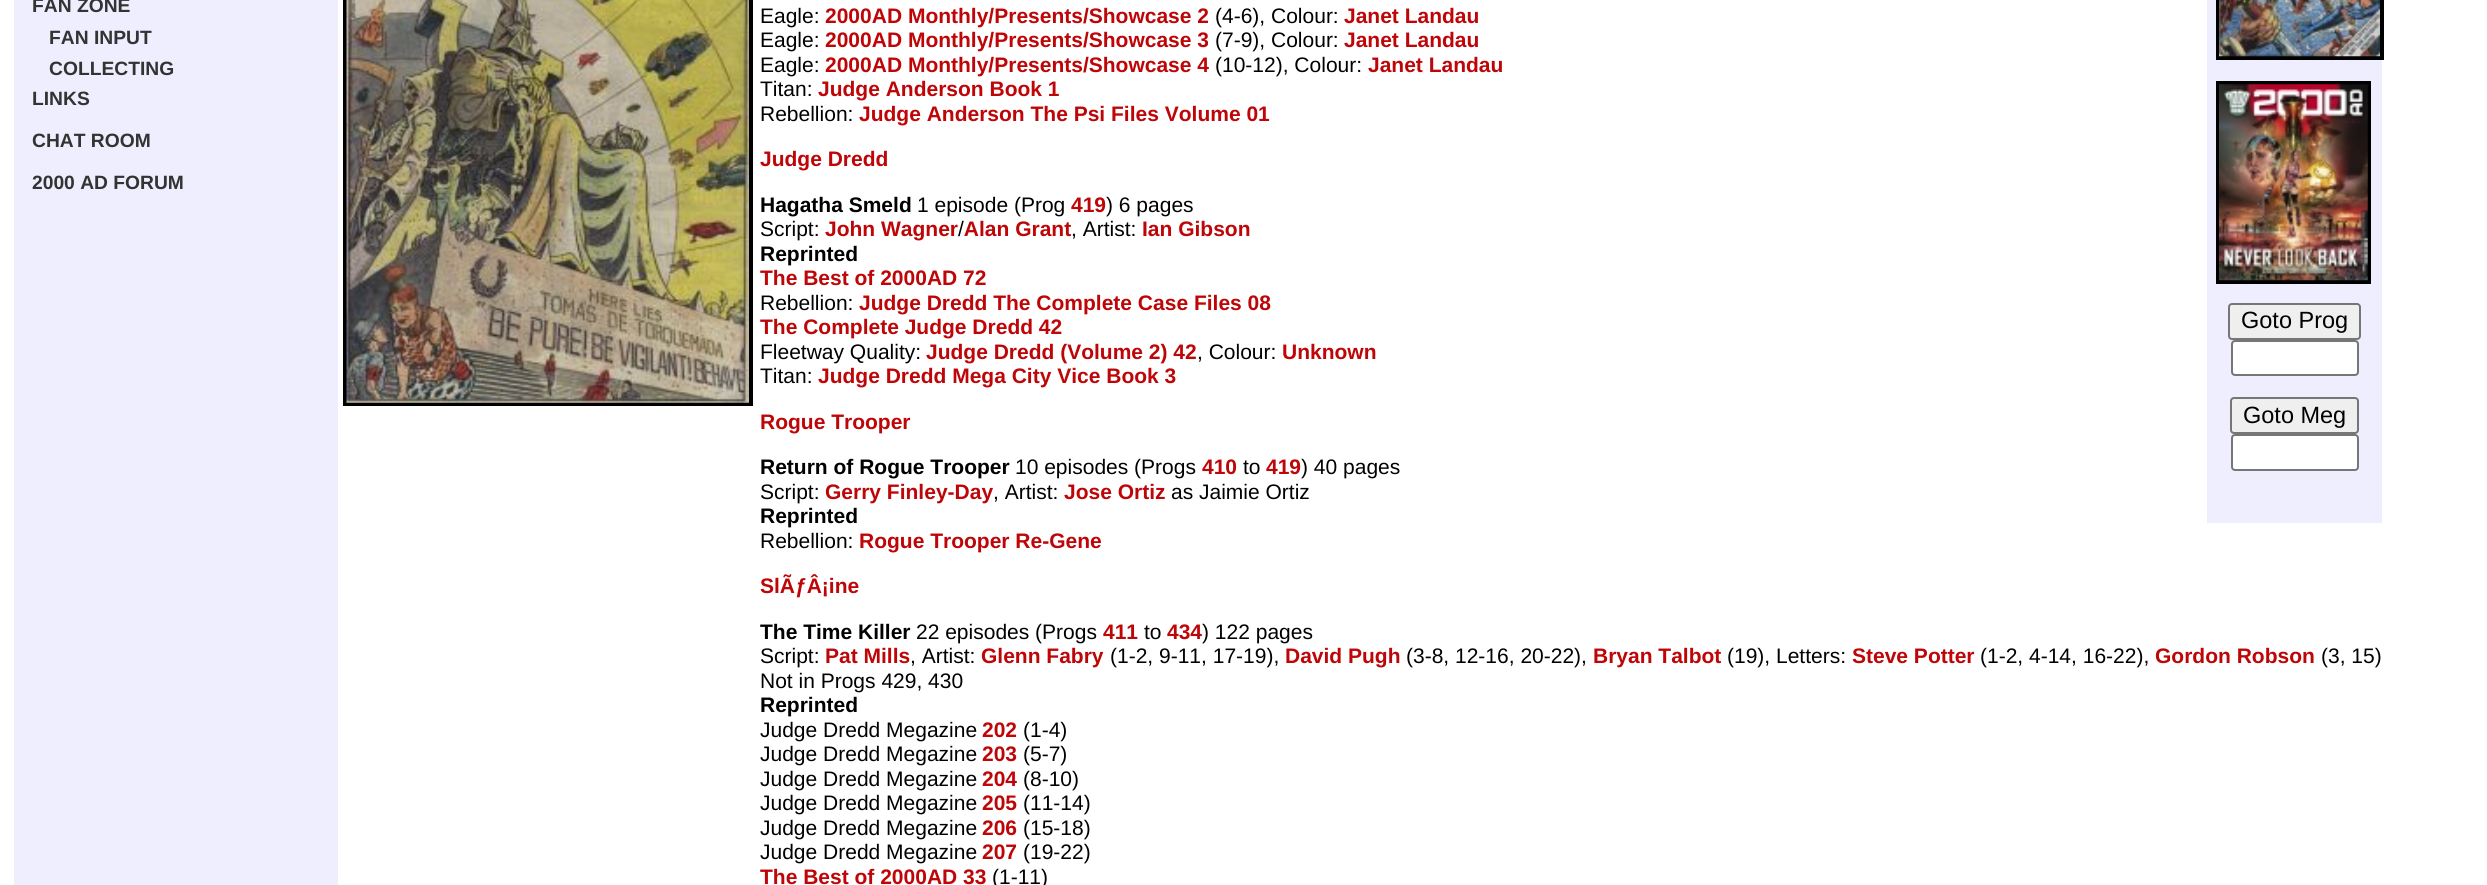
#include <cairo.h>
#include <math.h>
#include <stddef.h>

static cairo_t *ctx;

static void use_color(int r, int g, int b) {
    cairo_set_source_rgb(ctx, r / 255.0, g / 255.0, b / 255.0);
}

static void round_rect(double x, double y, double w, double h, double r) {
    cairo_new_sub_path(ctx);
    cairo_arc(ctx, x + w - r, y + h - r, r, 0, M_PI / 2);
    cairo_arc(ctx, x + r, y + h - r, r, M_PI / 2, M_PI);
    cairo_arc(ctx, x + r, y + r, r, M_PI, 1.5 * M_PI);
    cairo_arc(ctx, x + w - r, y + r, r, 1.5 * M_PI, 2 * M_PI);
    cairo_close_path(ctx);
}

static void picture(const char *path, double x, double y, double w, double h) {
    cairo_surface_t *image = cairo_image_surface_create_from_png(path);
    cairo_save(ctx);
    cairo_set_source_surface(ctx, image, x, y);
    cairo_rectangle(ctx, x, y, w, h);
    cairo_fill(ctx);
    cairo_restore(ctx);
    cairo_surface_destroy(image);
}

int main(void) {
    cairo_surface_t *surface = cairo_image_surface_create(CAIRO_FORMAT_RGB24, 2487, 885);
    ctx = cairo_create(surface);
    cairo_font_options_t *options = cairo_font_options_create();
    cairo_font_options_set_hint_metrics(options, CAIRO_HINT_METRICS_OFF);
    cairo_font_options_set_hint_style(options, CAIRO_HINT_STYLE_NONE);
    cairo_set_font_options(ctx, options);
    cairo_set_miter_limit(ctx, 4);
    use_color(255, 255, 255);
    cairo_paint(ctx);
    use_color(238, 238, 255);
    cairo_rectangle(ctx, 14, 0, 324, 885);
    cairo_fill(ctx);
    cairo_select_font_face(ctx, "Liberation Sans", CAIRO_FONT_SLANT_NORMAL, CAIRO_FONT_WEIGHT_BOLD);
    cairo_set_font_size(ctx, 19.25);
    use_color(51, 51, 51);
    cairo_move_to(ctx, 32, 12);
    cairo_show_text(ctx, "FAN ZONE");
    cairo_move_to(ctx, 49, 44);
    cairo_show_text(ctx, "FAN INPUT");
    cairo_move_to(ctx, 49, 75);
    cairo_show_text(ctx, "COLLECTING");
    cairo_move_to(ctx, 32, 105);
    cairo_show_text(ctx, "LINKS");
    cairo_move_to(ctx, 32, 147);
    cairo_show_text(ctx, "CHAT ROOM");
    cairo_move_to(ctx, 32, 189);
    cairo_show_text(ctx, "2000 AD FORUM");
    cairo_rectangle(ctx, 345, -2, 406, 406);
    use_color(0, 0, 0);
    cairo_set_line_width(ctx, 4);
    cairo_stroke(ctx);
    picture("img1.png", 346, 0, 403, 403);
    cairo_select_font_face(ctx, "Liberation Sans", CAIRO_FONT_SLANT_NORMAL, CAIRO_FONT_WEIGHT_NORMAL);
    cairo_set_font_size(ctx, 21);
    cairo_move_to(ctx, 760, 23);
    cairo_show_text(ctx, "Eagle:");
    cairo_select_font_face(ctx, "Liberation Sans", CAIRO_FONT_SLANT_NORMAL, CAIRO_FONT_WEIGHT_BOLD);
    use_color(190, 5, 7);
    cairo_move_to(ctx, 825, 23);
    cairo_show_text(ctx, "2000AD Monthly/Presents/Showcase 2");
    cairo_select_font_face(ctx, "Liberation Sans", CAIRO_FONT_SLANT_NORMAL, CAIRO_FONT_WEIGHT_NORMAL);
    use_color(0, 0, 0);
    cairo_move_to(ctx, 1215, 23);
    cairo_show_text(ctx, "(4-6), Colour:");
    cairo_select_font_face(ctx, "Liberation Sans", CAIRO_FONT_SLANT_NORMAL, CAIRO_FONT_WEIGHT_BOLD);
    use_color(190, 5, 7);
    cairo_move_to(ctx, 1344, 23);
    cairo_show_text(ctx, "Janet Landau");
    cairo_select_font_face(ctx, "Liberation Sans", CAIRO_FONT_SLANT_NORMAL, CAIRO_FONT_WEIGHT_NORMAL);
    use_color(0, 0, 0);
    cairo_move_to(ctx, 760, 47);
    cairo_show_text(ctx, "Eagle:");
    cairo_select_font_face(ctx, "Liberation Sans", CAIRO_FONT_SLANT_NORMAL, CAIRO_FONT_WEIGHT_BOLD);
    use_color(190, 5, 7);
    cairo_move_to(ctx, 825, 47);
    cairo_show_text(ctx, "2000AD Monthly/Presents/Showcase 3");
    cairo_select_font_face(ctx, "Liberation Sans", CAIRO_FONT_SLANT_NORMAL, CAIRO_FONT_WEIGHT_NORMAL);
    use_color(0, 0, 0);
    cairo_move_to(ctx, 1215, 47);
    cairo_show_text(ctx, "(7-9), Colour:");
    cairo_select_font_face(ctx, "Liberation Sans", CAIRO_FONT_SLANT_NORMAL, CAIRO_FONT_WEIGHT_BOLD);
    use_color(190, 5, 7);
    cairo_move_to(ctx, 1344, 47);
    cairo_show_text(ctx, "Janet Landau");
    cairo_select_font_face(ctx, "Liberation Sans", CAIRO_FONT_SLANT_NORMAL, CAIRO_FONT_WEIGHT_NORMAL);
    use_color(0, 0, 0);
    cairo_move_to(ctx, 760, 72);
    cairo_show_text(ctx, "Eagle:");
    cairo_select_font_face(ctx, "Liberation Sans", CAIRO_FONT_SLANT_NORMAL, CAIRO_FONT_WEIGHT_BOLD);
    use_color(190, 5, 7);
    cairo_move_to(ctx, 825, 72);
    cairo_show_text(ctx, "2000AD Monthly/Presents/Showcase 4");
    cairo_select_font_face(ctx, "Liberation Sans", CAIRO_FONT_SLANT_NORMAL, CAIRO_FONT_WEIGHT_NORMAL);
    use_color(0, 0, 0);
    cairo_move_to(ctx, 1215, 72);
    cairo_show_text(ctx, "(10-12), Colour:");
    cairo_select_font_face(ctx, "Liberation Sans", CAIRO_FONT_SLANT_NORMAL, CAIRO_FONT_WEIGHT_BOLD);
    use_color(190, 5, 7);
    cairo_move_to(ctx, 1368, 72);
    cairo_show_text(ctx, "Janet Landau");
    cairo_select_font_face(ctx, "Liberation Sans", CAIRO_FONT_SLANT_NORMAL, CAIRO_FONT_WEIGHT_NORMAL);
    use_color(0, 0, 0);
    cairo_move_to(ctx, 760, 96);
    cairo_show_text(ctx, "Titan:");
    cairo_select_font_face(ctx, "Liberation Sans", CAIRO_FONT_SLANT_NORMAL, CAIRO_FONT_WEIGHT_BOLD);
    use_color(190, 5, 7);
    cairo_move_to(ctx, 818, 96);
    cairo_show_text(ctx, "Judge Anderson Book 1");
    cairo_select_font_face(ctx, "Liberation Sans", CAIRO_FONT_SLANT_NORMAL, CAIRO_FONT_WEIGHT_NORMAL);
    use_color(0, 0, 0);
    cairo_move_to(ctx, 760, 121);
    cairo_show_text(ctx, "Rebellion:");
    cairo_select_font_face(ctx, "Liberation Sans", CAIRO_FONT_SLANT_NORMAL, CAIRO_FONT_WEIGHT_BOLD);
    use_color(190, 5, 7);
    cairo_move_to(ctx, 859, 121);
    cairo_show_text(ctx, "Judge Anderson The Psi Files Volume 01");
    cairo_move_to(ctx, 760, 166);
    cairo_show_text(ctx, "Judge Dredd");
    use_color(0, 0, 0);
    cairo_move_to(ctx, 760, 212);
    cairo_show_text(ctx, "Hagatha Smeld");
    cairo_select_font_face(ctx, "Liberation Sans", CAIRO_FONT_SLANT_NORMAL, CAIRO_FONT_WEIGHT_NORMAL);
    cairo_move_to(ctx, 917, 212);
    cairo_show_text(ctx, "1 episode (Prog");
    cairo_select_font_face(ctx, "Liberation Sans", CAIRO_FONT_SLANT_NORMAL, CAIRO_FONT_WEIGHT_BOLD);
    use_color(190, 5, 7);
    cairo_move_to(ctx, 1071, 212);
    cairo_show_text(ctx, "419");
    cairo_select_font_face(ctx, "Liberation Sans", CAIRO_FONT_SLANT_NORMAL, CAIRO_FONT_WEIGHT_NORMAL);
    use_color(0, 0, 0);
    cairo_move_to(ctx, 1106, 212);
    cairo_show_text(ctx, ") 6 pages");
    cairo_move_to(ctx, 760, 236);
    cairo_show_text(ctx, "Script:");
    cairo_select_font_face(ctx, "Liberation Sans", CAIRO_FONT_SLANT_NORMAL, CAIRO_FONT_WEIGHT_BOLD);
    use_color(190, 5, 7);
    cairo_move_to(ctx, 825, 236);
    cairo_show_text(ctx, "John Wagner Alan Grant");
    cairo_select_font_face(ctx, "Liberation Sans", CAIRO_FONT_SLANT_NORMAL, CAIRO_FONT_WEIGHT_NORMAL);
    use_color(0, 0, 0);
    cairo_move_to(ctx, 958, 236);
    cairo_show_text(ctx, "/");
    cairo_move_to(ctx, 1071, 236);
    cairo_show_text(ctx, ", Artist:");
    cairo_select_font_face(ctx, "Liberation Sans", CAIRO_FONT_SLANT_NORMAL, CAIRO_FONT_WEIGHT_BOLD);
    use_color(190, 5, 7);
    cairo_move_to(ctx, 1142, 236);
    cairo_show_text(ctx, "Ian Gibson");
    use_color(0, 0, 0);
    cairo_move_to(ctx, 760, 261);
    cairo_show_text(ctx, "Reprinted");
    use_color(190, 5, 7);
    cairo_move_to(ctx, 760, 285);
    cairo_show_text(ctx, "The Best of 2000AD 72");
    cairo_select_font_face(ctx, "Liberation Sans", CAIRO_FONT_SLANT_NORMAL, CAIRO_FONT_WEIGHT_NORMAL);
    use_color(0, 0, 0);
    cairo_move_to(ctx, 760, 310);
    cairo_show_text(ctx, "Rebellion:");
    cairo_select_font_face(ctx, "Liberation Sans", CAIRO_FONT_SLANT_NORMAL, CAIRO_FONT_WEIGHT_BOLD);
    use_color(190, 5, 7);
    cairo_move_to(ctx, 859, 310);
    cairo_show_text(ctx, "Judge Dredd The Complete Case Files 08");
    cairo_move_to(ctx, 760, 334);
    cairo_show_text(ctx, "The Complete Judge Dredd 42");
    cairo_select_font_face(ctx, "Liberation Sans", CAIRO_FONT_SLANT_NORMAL, CAIRO_FONT_WEIGHT_NORMAL);
    use_color(0, 0, 0);
    cairo_move_to(ctx, 760, 359);
    cairo_show_text(ctx, "Fleetway Quality:");
    cairo_select_font_face(ctx, "Liberation Sans", CAIRO_FONT_SLANT_NORMAL, CAIRO_FONT_WEIGHT_BOLD);
    use_color(190, 5, 7);
    cairo_move_to(ctx, 926, 359);
    cairo_show_text(ctx, "Judge Dredd (Volume 2) 42");
    cairo_select_font_face(ctx, "Liberation Sans", CAIRO_FONT_SLANT_NORMAL, CAIRO_FONT_WEIGHT_NORMAL);
    use_color(0, 0, 0);
    cairo_move_to(ctx, 1197, 359);
    cairo_show_text(ctx, ", Colour:");
    cairo_select_font_face(ctx, "Liberation Sans", CAIRO_FONT_SLANT_NORMAL, CAIRO_FONT_WEIGHT_BOLD);
    use_color(190, 5, 7);
    cairo_move_to(ctx, 1282, 359);
    cairo_show_text(ctx, "Unknown");
    cairo_select_font_face(ctx, "Liberation Sans", CAIRO_FONT_SLANT_NORMAL, CAIRO_FONT_WEIGHT_NORMAL);
    use_color(0, 0, 0);
    cairo_move_to(ctx, 760, 383);
    cairo_show_text(ctx, "Titan:");
    cairo_select_font_face(ctx, "Liberation Sans", CAIRO_FONT_SLANT_NORMAL, CAIRO_FONT_WEIGHT_BOLD);
    use_color(190, 5, 7);
    cairo_move_to(ctx, 818, 383);
    cairo_show_text(ctx, "Judge Dredd Mega City Vice Book 3");
    use_color(238, 238, 255);
    cairo_rectangle(ctx, 2207, 0, 175, 523);
    cairo_fill(ctx);
    cairo_rectangle(ctx, 2218, -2, 164, 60);
    use_color(0, 0, 0);
    cairo_stroke(ctx);
    picture("img2.png", 2219, 0, 161, 57);
    cairo_rectangle(ctx, 2218, 83, 151, 199);
    cairo_stroke(ctx);
    picture("img3.png", 2219, 84, 149, 197);
    use_color(239, 239, 239);
    round_rect(2229, 304, 131, 35, 3);
    cairo_fill_preserve(ctx);
    use_color(118, 118, 118);
    cairo_set_line_width(ctx, 2);
    cairo_stroke(ctx);
    cairo_select_font_face(ctx, "Liberation Sans", CAIRO_FONT_SLANT_NORMAL, CAIRO_FONT_WEIGHT_NORMAL);
    cairo_set_font_size(ctx, 23.5);
    use_color(0, 0, 0);
    cairo_move_to(ctx, 2241, 328);
    cairo_show_text(ctx, "Goto Prog");
    use_color(255, 255, 255);
    round_rect(2232, 341, 126, 34, 3);
    cairo_fill_preserve(ctx);
    use_color(118, 118, 118);
    cairo_stroke(ctx);
    use_color(239, 239, 239);
    round_rect(2231, 398, 127, 35, 3);
    cairo_fill_preserve(ctx);
    use_color(118, 118, 118);
    cairo_stroke(ctx);
    use_color(0, 0, 0);
    cairo_move_to(ctx, 2243, 423);
    cairo_show_text(ctx, "Goto Meg");
    use_color(255, 255, 255);
    round_rect(2232, 435, 126, 35, 3);
    cairo_fill_preserve(ctx);
    use_color(118, 118, 118);
    cairo_stroke(ctx);
    cairo_select_font_face(ctx, "Liberation Sans", CAIRO_FONT_SLANT_NORMAL, CAIRO_FONT_WEIGHT_BOLD);
    cairo_set_font_size(ctx, 21);
    use_color(190, 5, 7);
    cairo_move_to(ctx, 760, 429);
    cairo_show_text(ctx, "Rogue Trooper");
    use_color(0, 0, 0);
    cairo_move_to(ctx, 760, 474);
    cairo_show_text(ctx, "Return of Rogue Trooper");
    cairo_select_font_face(ctx, "Liberation Sans", CAIRO_FONT_SLANT_NORMAL, CAIRO_FONT_WEIGHT_NORMAL);
    cairo_move_to(ctx, 1015, 474);
    cairo_show_text(ctx, "10 episodes (Progs");
    cairo_select_font_face(ctx, "Liberation Sans", CAIRO_FONT_SLANT_NORMAL, CAIRO_FONT_WEIGHT_BOLD);
    use_color(190, 5, 7);
    cairo_move_to(ctx, 1202, 474);
    cairo_show_text(ctx, "410");
    cairo_select_font_face(ctx, "Liberation Sans", CAIRO_FONT_SLANT_NORMAL, CAIRO_FONT_WEIGHT_NORMAL);
    use_color(0, 0, 0);
    cairo_move_to(ctx, 1243, 474);
    cairo_show_text(ctx, "to");
    cairo_select_font_face(ctx, "Liberation Sans", CAIRO_FONT_SLANT_NORMAL, CAIRO_FONT_WEIGHT_BOLD);
    use_color(190, 5, 7);
    cairo_move_to(ctx, 1266, 474);
    cairo_show_text(ctx, "419");
    cairo_select_font_face(ctx, "Liberation Sans", CAIRO_FONT_SLANT_NORMAL, CAIRO_FONT_WEIGHT_NORMAL);
    use_color(0, 0, 0);
    cairo_move_to(ctx, 1301, 474);
    cairo_show_text(ctx, ") 40 pages");
    cairo_move_to(ctx, 760, 499);
    cairo_show_text(ctx, "Script:");
    cairo_select_font_face(ctx, "Liberation Sans", CAIRO_FONT_SLANT_NORMAL, CAIRO_FONT_WEIGHT_BOLD);
    use_color(190, 5, 7);
    cairo_move_to(ctx, 825, 499);
    cairo_show_text(ctx, "Gerry Finley-Day");
    cairo_select_font_face(ctx, "Liberation Sans", CAIRO_FONT_SLANT_NORMAL, CAIRO_FONT_WEIGHT_NORMAL);
    use_color(0, 0, 0);
    cairo_move_to(ctx, 993, 499);
    cairo_show_text(ctx, ", Artist:");
    cairo_select_font_face(ctx, "Liberation Sans", CAIRO_FONT_SLANT_NORMAL, CAIRO_FONT_WEIGHT_BOLD);
    use_color(190, 5, 7);
    cairo_move_to(ctx, 1064, 499);
    cairo_show_text(ctx, "Jose Ortiz");
    cairo_select_font_face(ctx, "Liberation Sans", CAIRO_FONT_SLANT_NORMAL, CAIRO_FONT_WEIGHT_NORMAL);
    use_color(0, 0, 0);
    cairo_move_to(ctx, 1171, 499);
    cairo_show_text(ctx, "as Jaimie Ortiz");
    cairo_select_font_face(ctx, "Liberation Sans", CAIRO_FONT_SLANT_NORMAL, CAIRO_FONT_WEIGHT_BOLD);
    cairo_move_to(ctx, 760, 523);
    cairo_show_text(ctx, "Reprinted");
    cairo_select_font_face(ctx, "Liberation Sans", CAIRO_FONT_SLANT_NORMAL, CAIRO_FONT_WEIGHT_NORMAL);
    cairo_move_to(ctx, 760, 548);
    cairo_show_text(ctx, "Rebellion:");
    cairo_select_font_face(ctx, "Liberation Sans", CAIRO_FONT_SLANT_NORMAL, CAIRO_FONT_WEIGHT_BOLD);
    use_color(190, 5, 7);
    cairo_move_to(ctx, 859, 548);
    cairo_show_text(ctx, "Rogue Trooper Re-Gene");
    cairo_move_to(ctx, 760, 593);
    cairo_show_text(ctx, "SlÃƒÂ¡ine");
    use_color(0, 0, 0);
    cairo_move_to(ctx, 760, 639);
    cairo_show_text(ctx, "The Time Killer");
    cairo_select_font_face(ctx, "Liberation Sans", CAIRO_FONT_SLANT_NORMAL, CAIRO_FONT_WEIGHT_NORMAL);
    cairo_move_to(ctx, 916, 639);
    cairo_show_text(ctx, "22 episodes (Progs");
    cairo_select_font_face(ctx, "Liberation Sans", CAIRO_FONT_SLANT_NORMAL, CAIRO_FONT_WEIGHT_BOLD);
    use_color(190, 5, 7);
    cairo_move_to(ctx, 1103, 639);
    cairo_show_text(ctx, "411");
    cairo_select_font_face(ctx, "Liberation Sans", CAIRO_FONT_SLANT_NORMAL, CAIRO_FONT_WEIGHT_NORMAL);
    use_color(0, 0, 0);
    cairo_move_to(ctx, 1144, 639);
    cairo_show_text(ctx, "to");
    cairo_select_font_face(ctx, "Liberation Sans", CAIRO_FONT_SLANT_NORMAL, CAIRO_FONT_WEIGHT_BOLD);
    use_color(190, 5, 7);
    cairo_move_to(ctx, 1167, 639);
    cairo_show_text(ctx, "434");
    cairo_select_font_face(ctx, "Liberation Sans", CAIRO_FONT_SLANT_NORMAL, CAIRO_FONT_WEIGHT_NORMAL);
    use_color(0, 0, 0);
    cairo_move_to(ctx, 1202, 639);
    cairo_show_text(ctx, ") 122 pages");
    cairo_move_to(ctx, 760, 663);
    cairo_show_text(ctx, "Script:");
    cairo_select_font_face(ctx, "Liberation Sans", CAIRO_FONT_SLANT_NORMAL, CAIRO_FONT_WEIGHT_BOLD);
    use_color(190, 5, 7);
    cairo_move_to(ctx, 825, 663);
    cairo_show_text(ctx, "Pat Mills");
    cairo_select_font_face(ctx, "Liberation Sans", CAIRO_FONT_SLANT_NORMAL, CAIRO_FONT_WEIGHT_NORMAL);
    use_color(0, 0, 0);
    cairo_move_to(ctx, 910, 663);
    cairo_show_text(ctx, ", Artist:");
    cairo_select_font_face(ctx, "Liberation Sans", CAIRO_FONT_SLANT_NORMAL, CAIRO_FONT_WEIGHT_BOLD);
    use_color(190, 5, 7);
    cairo_move_to(ctx, 981, 663);
    cairo_show_text(ctx, "Glenn Fabry");
    cairo_select_font_face(ctx, "Liberation Sans", CAIRO_FONT_SLANT_NORMAL, CAIRO_FONT_WEIGHT_NORMAL);
    use_color(0, 0, 0);
    cairo_move_to(ctx, 1110, 663);
    cairo_show_text(ctx, "(1-2, 9-11, 17-19),");
    cairo_select_font_face(ctx, "Liberation Sans", CAIRO_FONT_SLANT_NORMAL, CAIRO_FONT_WEIGHT_BOLD);
    use_color(190, 5, 7);
    cairo_move_to(ctx, 1285, 663);
    cairo_show_text(ctx, "David Pugh");
    cairo_select_font_face(ctx, "Liberation Sans", CAIRO_FONT_SLANT_NORMAL, CAIRO_FONT_WEIGHT_NORMAL);
    use_color(0, 0, 0);
    cairo_move_to(ctx, 1406, 663);
    cairo_show_text(ctx, "(3-8, 12-16, 20-22),");
    cairo_select_font_face(ctx, "Liberation Sans", CAIRO_FONT_SLANT_NORMAL, CAIRO_FONT_WEIGHT_BOLD);
    use_color(190, 5, 7);
    cairo_move_to(ctx, 1593, 663);
    cairo_show_text(ctx, "Bryan Talbot");
    cairo_select_font_face(ctx, "Liberation Sans", CAIRO_FONT_SLANT_NORMAL, CAIRO_FONT_WEIGHT_NORMAL);
    use_color(0, 0, 0);
    cairo_move_to(ctx, 1727, 663);
    cairo_show_text(ctx, "(19), Letters:");
    cairo_select_font_face(ctx, "Liberation Sans", CAIRO_FONT_SLANT_NORMAL, CAIRO_FONT_WEIGHT_BOLD);
    use_color(190, 5, 7);
    cairo_move_to(ctx, 1852, 663);
    cairo_show_text(ctx, "Steve Potter");
    cairo_select_font_face(ctx, "Liberation Sans", CAIRO_FONT_SLANT_NORMAL, CAIRO_FONT_WEIGHT_NORMAL);
    use_color(0, 0, 0);
    cairo_move_to(ctx, 1980, 663);
    cairo_show_text(ctx, "(1-2, 4-14, 16-22),");
    cairo_select_font_face(ctx, "Liberation Sans", CAIRO_FONT_SLANT_NORMAL, CAIRO_FONT_WEIGHT_BOLD);
    use_color(190, 5, 7);
    cairo_move_to(ctx, 2155, 663);
    cairo_show_text(ctx, "Gordon Robson");
    cairo_select_font_face(ctx, "Liberation Sans", CAIRO_FONT_SLANT_NORMAL, CAIRO_FONT_WEIGHT_NORMAL);
    use_color(0, 0, 0);
    cairo_move_to(ctx, 2321, 663);
    cairo_show_text(ctx, "(3, 15)");
    cairo_move_to(ctx, 760, 688);
    cairo_show_text(ctx, "Not in Progs 429, 430");
    cairo_select_font_face(ctx, "Liberation Sans", CAIRO_FONT_SLANT_NORMAL, CAIRO_FONT_WEIGHT_BOLD);
    cairo_move_to(ctx, 760, 712);
    cairo_show_text(ctx, "Reprinted");
    cairo_select_font_face(ctx, "Liberation Sans", CAIRO_FONT_SLANT_NORMAL, CAIRO_FONT_WEIGHT_NORMAL);
    cairo_move_to(ctx, 760, 737);
    cairo_show_text(ctx, "Judge Dredd Megazine");
    cairo_select_font_face(ctx, "Liberation Sans", CAIRO_FONT_SLANT_NORMAL, CAIRO_FONT_WEIGHT_BOLD);
    use_color(190, 5, 7);
    cairo_move_to(ctx, 982, 737);
    cairo_show_text(ctx, "202");
    cairo_select_font_face(ctx, "Liberation Sans", CAIRO_FONT_SLANT_NORMAL, CAIRO_FONT_WEIGHT_NORMAL);
    use_color(0, 0, 0);
    cairo_move_to(ctx, 1023, 737);
    cairo_show_text(ctx, "(1-4)");
    cairo_move_to(ctx, 760, 761);
    cairo_show_text(ctx, "Judge Dredd Megazine");
    cairo_select_font_face(ctx, "Liberation Sans", CAIRO_FONT_SLANT_NORMAL, CAIRO_FONT_WEIGHT_BOLD);
    use_color(190, 5, 7);
    cairo_move_to(ctx, 982, 761);
    cairo_show_text(ctx, "203");
    cairo_select_font_face(ctx, "Liberation Sans", CAIRO_FONT_SLANT_NORMAL, CAIRO_FONT_WEIGHT_NORMAL);
    use_color(0, 0, 0);
    cairo_move_to(ctx, 1023, 761);
    cairo_show_text(ctx, "(5-7)");
    cairo_move_to(ctx, 760, 786);
    cairo_show_text(ctx, "Judge Dredd Megazine");
    cairo_select_font_face(ctx, "Liberation Sans", CAIRO_FONT_SLANT_NORMAL, CAIRO_FONT_WEIGHT_BOLD);
    use_color(190, 5, 7);
    cairo_move_to(ctx, 982, 786);
    cairo_show_text(ctx, "204");
    cairo_select_font_face(ctx, "Liberation Sans", CAIRO_FONT_SLANT_NORMAL, CAIRO_FONT_WEIGHT_NORMAL);
    use_color(0, 0, 0);
    cairo_move_to(ctx, 1023, 786);
    cairo_show_text(ctx, "(8-10)");
    cairo_move_to(ctx, 760, 810);
    cairo_show_text(ctx, "Judge Dredd Megazine");
    cairo_select_font_face(ctx, "Liberation Sans", CAIRO_FONT_SLANT_NORMAL, CAIRO_FONT_WEIGHT_BOLD);
    use_color(190, 5, 7);
    cairo_move_to(ctx, 982, 810);
    cairo_show_text(ctx, "205");
    cairo_select_font_face(ctx, "Liberation Sans", CAIRO_FONT_SLANT_NORMAL, CAIRO_FONT_WEIGHT_NORMAL);
    use_color(0, 0, 0);
    cairo_move_to(ctx, 1023, 810);
    cairo_show_text(ctx, "(11-14)");
    cairo_move_to(ctx, 760, 835);
    cairo_show_text(ctx, "Judge Dredd Megazine");
    cairo_select_font_face(ctx, "Liberation Sans", CAIRO_FONT_SLANT_NORMAL, CAIRO_FONT_WEIGHT_BOLD);
    use_color(190, 5, 7);
    cairo_move_to(ctx, 982, 835);
    cairo_show_text(ctx, "206");
    cairo_select_font_face(ctx, "Liberation Sans", CAIRO_FONT_SLANT_NORMAL, CAIRO_FONT_WEIGHT_NORMAL);
    use_color(0, 0, 0);
    cairo_move_to(ctx, 1023, 835);
    cairo_show_text(ctx, "(15-18)");
    cairo_move_to(ctx, 760, 859);
    cairo_show_text(ctx, "Judge Dredd Megazine");
    cairo_select_font_face(ctx, "Liberation Sans", CAIRO_FONT_SLANT_NORMAL, CAIRO_FONT_WEIGHT_BOLD);
    use_color(190, 5, 7);
    cairo_move_to(ctx, 982, 859);
    cairo_show_text(ctx, "207");
    cairo_select_font_face(ctx, "Liberation Sans", CAIRO_FONT_SLANT_NORMAL, CAIRO_FONT_WEIGHT_NORMAL);
    use_color(0, 0, 0);
    cairo_move_to(ctx, 1023, 859);
    cairo_show_text(ctx, "(19-22)");
    cairo_select_font_face(ctx, "Liberation Sans", CAIRO_FONT_SLANT_NORMAL, CAIRO_FONT_WEIGHT_BOLD);
    use_color(190, 5, 7);
    cairo_move_to(ctx, 760, 884);
    cairo_show_text(ctx, "The Best of 2000AD 33");
    cairo_select_font_face(ctx, "Liberation Sans", CAIRO_FONT_SLANT_NORMAL, CAIRO_FONT_WEIGHT_NORMAL);
    use_color(0, 0, 0);
    cairo_move_to(ctx, 992, 884);
    cairo_show_text(ctx, "(1-11)");
    cairo_surface_write_to_png(surface, "result.png");
    cairo_font_options_destroy(options);
    cairo_destroy(ctx);
    cairo_surface_destroy(surface);
    return 0;
}
